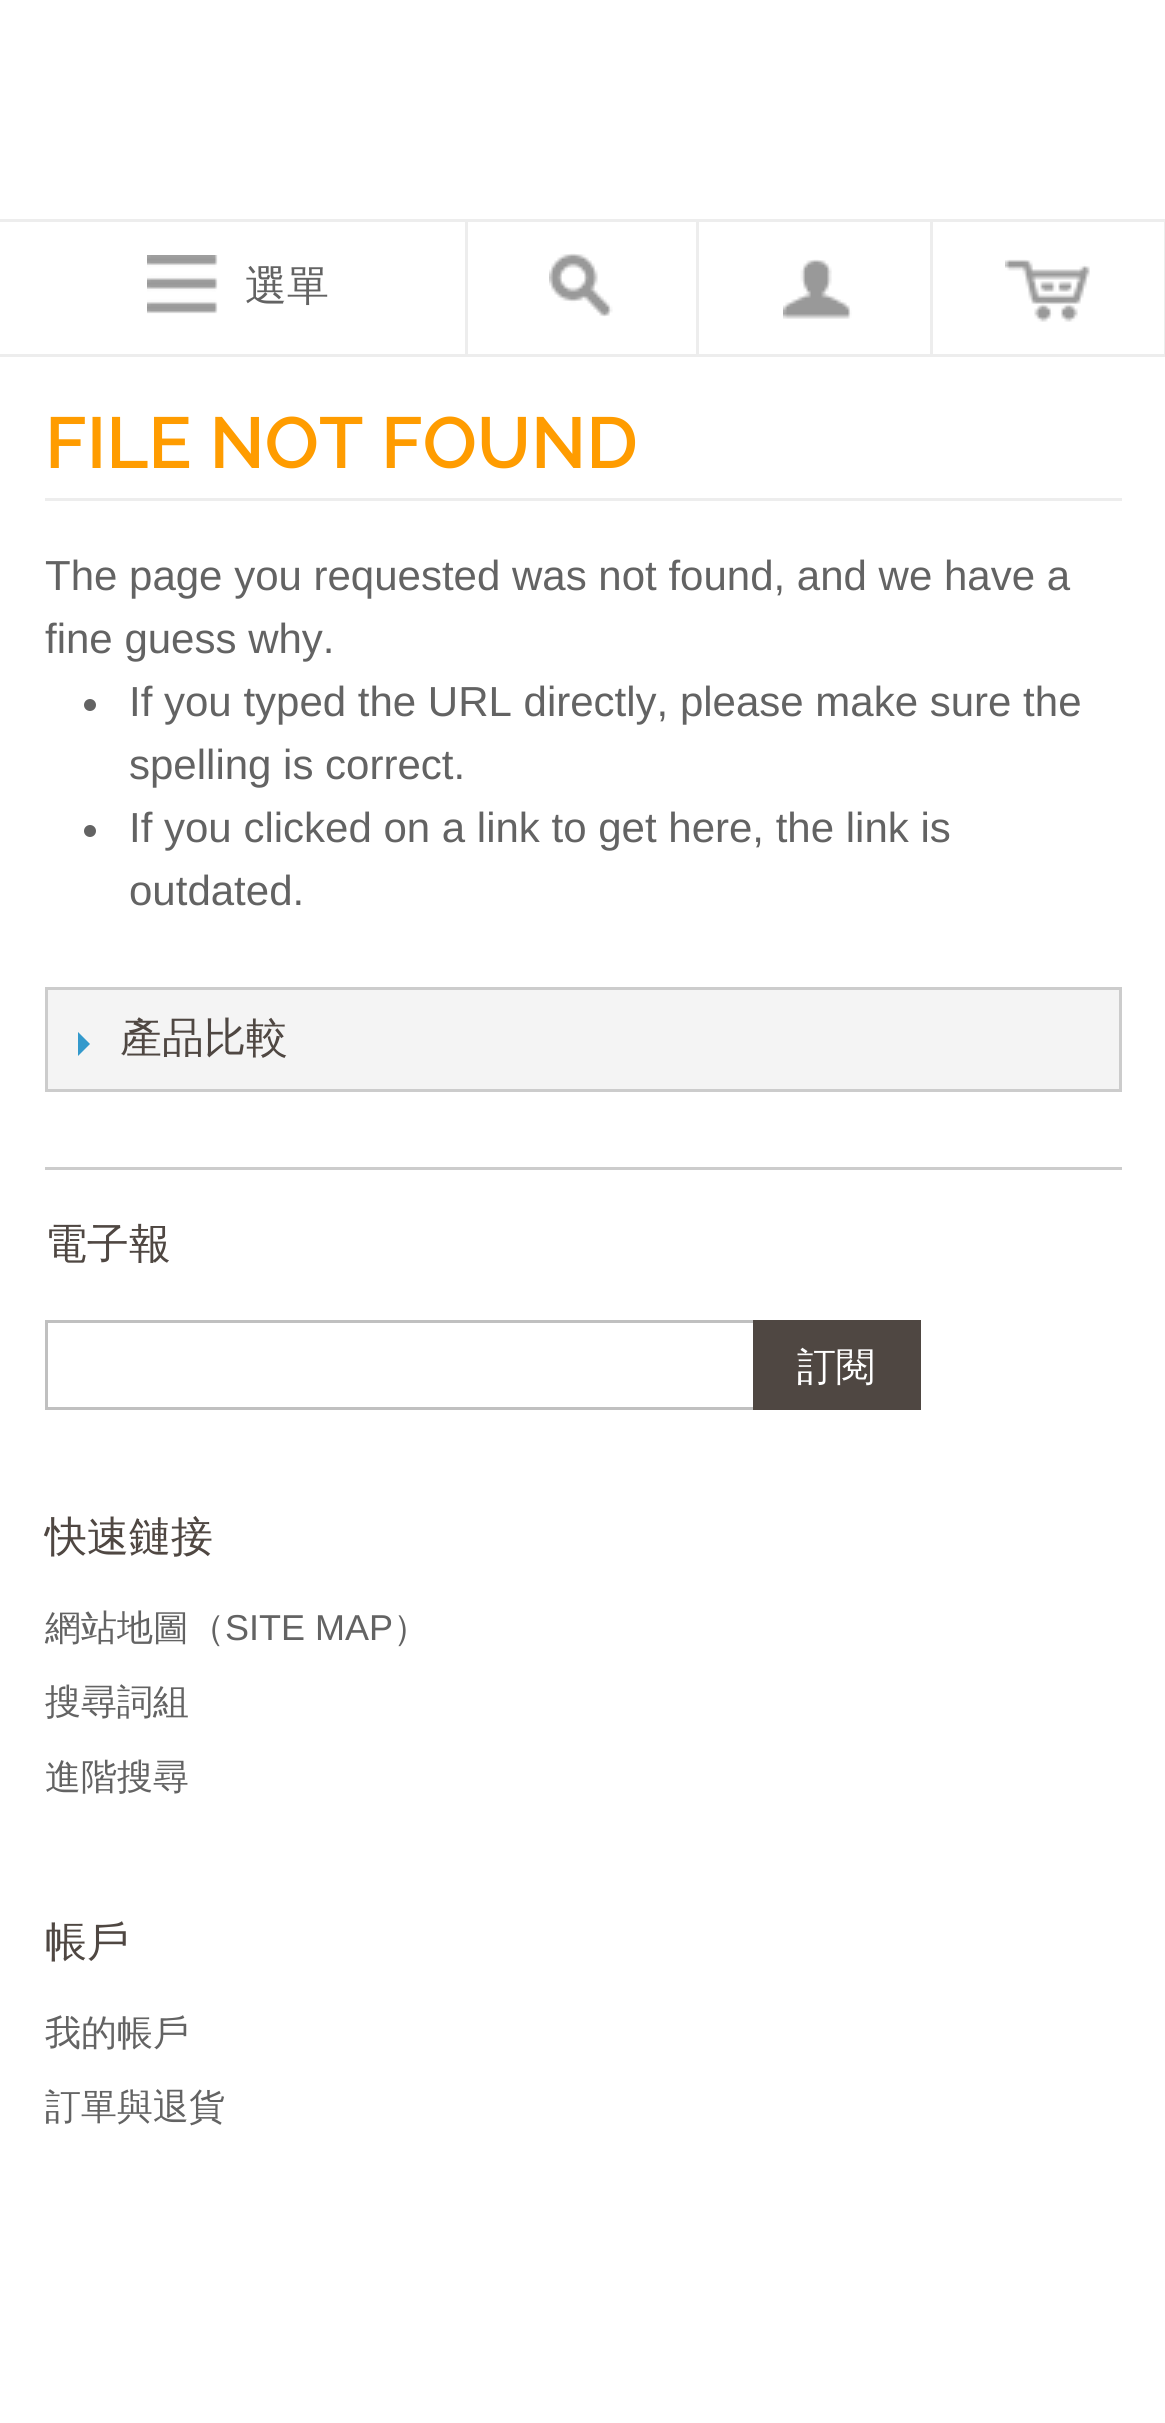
#include <cairo.h>
#include <math.h>
#include <stddef.h>

static cairo_t *ctx;

static void use_color(int r, int g, int b) {
    cairo_set_source_rgb(ctx, r / 255.0, g / 255.0, b / 255.0);
}

static void picture(const char *path, double x, double y, double w, double h) {
    cairo_surface_t *image = cairo_image_surface_create_from_png(path);
    cairo_save(ctx);
    cairo_set_source_surface(ctx, image, x, y);
    cairo_rectangle(ctx, x, y, w, h);
    cairo_fill(ctx);
    cairo_restore(ctx);
    cairo_surface_destroy(image);
}

int main(void) {
    cairo_surface_t *surface = cairo_image_surface_create(CAIRO_FORMAT_RGB24, 1165, 2423);
    ctx = cairo_create(surface);
    cairo_font_options_t *options = cairo_font_options_create();
    cairo_font_options_set_hint_metrics(options, CAIRO_HINT_METRICS_OFF);
    cairo_font_options_set_hint_style(options, CAIRO_HINT_STYLE_NONE);
    cairo_set_font_options(ctx, options);
    cairo_set_miter_limit(ctx, 4);
    use_color(255, 255, 255);
    cairo_paint(ctx);
    use_color(237, 237, 237);
    cairo_rectangle(ctx, 0, 219, 1165, 3);
    cairo_fill(ctx);
    cairo_rectangle(ctx, 0, 354, 1165, 3);
    cairo_fill(ctx);
    cairo_rectangle(ctx, 465, 222, 3, 132);
    cairo_fill(ctx);
    picture("img1.png", 147, 255, 71, 59);
    cairo_select_font_face(ctx, "WenQuanYi Zen Hei Medium", CAIRO_FONT_SLANT_NORMAL, CAIRO_FONT_WEIGHT_NORMAL);
    cairo_set_font_size(ctx, 42);
    use_color(99, 99, 99);
    cairo_move_to(ctx, 245, 300);
    cairo_show_text(ctx, "選單");
    use_color(237, 237, 237);
    cairo_rectangle(ctx, 696, 222, 3, 132);
    cairo_fill(ctx);
    picture("img2.png", 549, 253, 64, 64);
    cairo_rectangle(ctx, 930, 222, 3, 132);
    cairo_fill(ctx);
    picture("img3.png", 783, 259, 69, 60);
    cairo_rectangle(ctx, 1164, 222, 1, 132);
    cairo_fill(ctx);
    picture("img4.png", 1005, 259, 85, 63);
    cairo_rectangle(ctx, 45, 498, 1077, 3);
    cairo_fill(ctx);
    cairo_select_font_face(ctx, "Raleway SemiBold", CAIRO_FONT_SLANT_NORMAL, CAIRO_FONT_WEIGHT_NORMAL);
    cairo_set_font_size(ctx, 72);
    use_color(255, 156, 0);
    cairo_move_to(ctx, 45, 468);
    cairo_show_text(ctx, "FILE NOT FOUND");
    cairo_select_font_face(ctx, "Liberation Sans", CAIRO_FONT_SLANT_NORMAL, CAIRO_FONT_WEIGHT_NORMAL);
    cairo_set_font_size(ctx, 42);
    use_color(99, 99, 99);
    cairo_move_to(ctx, 45, 590);
    cairo_show_text(ctx, "The page you requested was not found, and we have a");
    cairo_move_to(ctx, 45, 653);
    cairo_show_text(ctx, "fine guess why.");
    cairo_new_path(ctx);
    cairo_arc(ctx, 90, 705, 6, 0, 2 * M_PI);
    cairo_fill(ctx);
    cairo_move_to(ctx, 129, 716);
    cairo_show_text(ctx, "If you typed the URL directly, please make sure the");
    cairo_move_to(ctx, 129, 779);
    cairo_show_text(ctx, "spelling is correct.");
    cairo_new_path(ctx);
    cairo_arc(ctx, 90, 831, 6, 0, 2 * M_PI);
    cairo_fill(ctx);
    cairo_move_to(ctx, 129, 842);
    cairo_show_text(ctx, "If you clicked on a link to get here, the link is");
    cairo_move_to(ctx, 129, 905);
    cairo_show_text(ctx, "outdated.");
    use_color(204, 204, 204);
    cairo_rectangle(ctx, 45, 1089, 1077, 3);
    cairo_fill(ctx);
    use_color(244, 244, 244);
    cairo_rectangle(ctx, 48, 990, 1071, 99);
    cairo_fill(ctx);
    use_color(204, 204, 204);
    cairo_rectangle(ctx, 45, 987, 1077, 3);
    cairo_fill(ctx);
    cairo_rectangle(ctx, 1119, 987, 3, 102);
    cairo_fill(ctx);
    cairo_rectangle(ctx, 45, 987, 3, 102);
    cairo_fill(ctx);
    use_color(51, 153, 204);
    cairo_new_path(ctx);
    cairo_move_to(ctx, 78, 1056);
    cairo_line_to(ctx, 78, 1032);
    cairo_line_to(ctx, 90, 1044);
    cairo_close_path(ctx);
    cairo_fill(ctx);
    cairo_select_font_face(ctx, "WenQuanYi Zen Hei Medium", CAIRO_FONT_SLANT_NORMAL, CAIRO_FONT_WEIGHT_NORMAL);
    use_color(79, 71, 66);
    cairo_move_to(ctx, 120, 1052);
    cairo_show_text(ctx, "產品比較");
    use_color(204, 204, 204);
    cairo_rectangle(ctx, 45, 1167, 1077, 3);
    cairo_fill(ctx);
    use_color(79, 71, 66);
    cairo_move_to(ctx, 45, 1258);
    cairo_show_text(ctx, "電子報");
    use_color(192, 192, 192);
    cairo_rectangle(ctx, 45, 1320, 708, 3);
    cairo_fill(ctx);
    cairo_rectangle(ctx, 45, 1407, 708, 3);
    cairo_fill(ctx);
    cairo_rectangle(ctx, 45, 1320, 3, 90);
    cairo_fill(ctx);
    use_color(79, 71, 66);
    cairo_rectangle(ctx, 753, 1320, 168, 90);
    cairo_fill(ctx);
    cairo_set_font_size(ctx, 39);
    use_color(255, 255, 255);
    cairo_move_to(ctx, 797, 1380);
    cairo_show_text(ctx, "訂閱");
    cairo_set_font_size(ctx, 42);
    use_color(79, 71, 66);
    cairo_move_to(ctx, 45, 1551);
    cairo_show_text(ctx, "快速鏈接");
    cairo_set_font_size(ctx, 36);
    use_color(99, 99, 99);
    cairo_move_to(ctx, 45, 1640);
    cairo_show_text(ctx, "網站地圖（");
    cairo_select_font_face(ctx, "Liberation Sans", CAIRO_FONT_SLANT_NORMAL, CAIRO_FONT_WEIGHT_NORMAL);
    cairo_move_to(ctx, 225, 1640);
    cairo_show_text(ctx, "SITE MAP");
    cairo_select_font_face(ctx, "WenQuanYi Zen Hei Medium", CAIRO_FONT_SLANT_NORMAL, CAIRO_FONT_WEIGHT_NORMAL);
    cairo_move_to(ctx, 393, 1640);
    cairo_show_text(ctx, "）");
    cairo_move_to(ctx, 45, 1714);
    cairo_show_text(ctx, "搜尋詞組");
    cairo_move_to(ctx, 45, 1789);
    cairo_show_text(ctx, "進階搜尋");
    cairo_set_font_size(ctx, 42);
    use_color(79, 71, 66);
    cairo_move_to(ctx, 45, 1956);
    cairo_show_text(ctx, "帳戶");
    cairo_set_font_size(ctx, 36);
    use_color(99, 99, 99);
    cairo_move_to(ctx, 45, 2045);
    cairo_show_text(ctx, "我的帳戶");
    cairo_move_to(ctx, 45, 2119);
    cairo_show_text(ctx, "訂單與退貨");
    cairo_surface_write_to_png(surface, "result.png");
    cairo_font_options_destroy(options);
    cairo_destroy(ctx);
    cairo_surface_destroy(surface);
    return 0;
}
